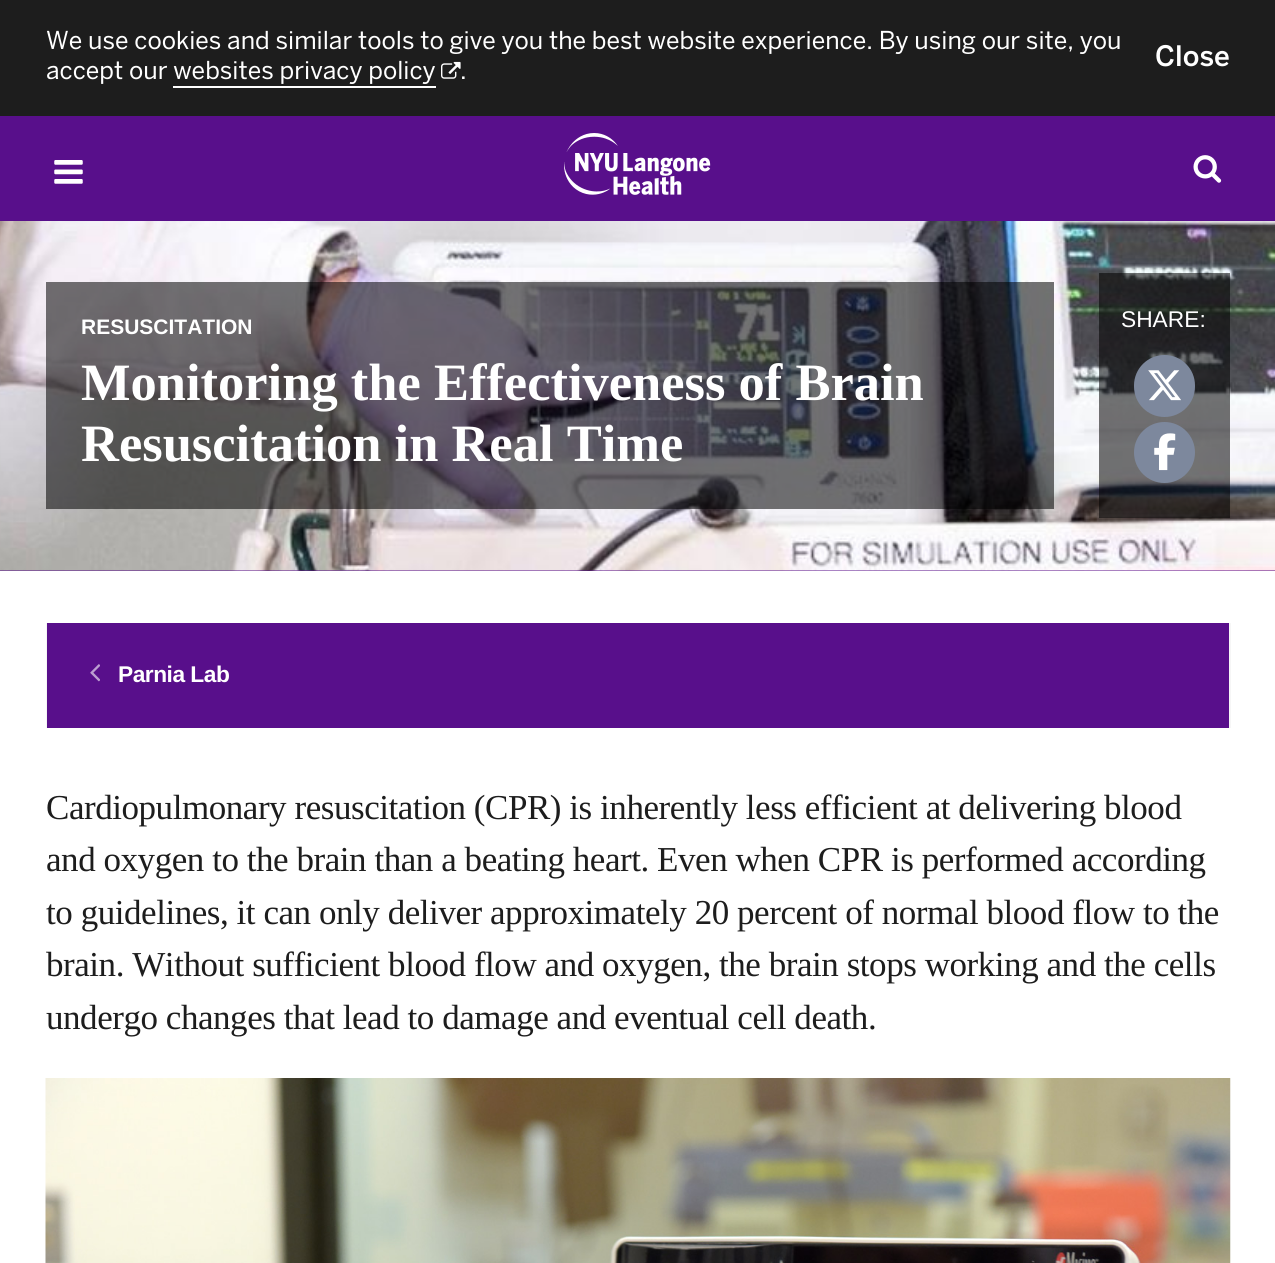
#include <cairo.h>
#include <math.h>
#include <stddef.h>

static cairo_t *ctx;

static void use_color(int r, int g, int b) {
    cairo_set_source_rgb(ctx, r / 255.0, g / 255.0, b / 255.0);
}

static void spaced_text(double x, double y, const char *s, double letter, double word) {
    cairo_move_to(ctx, x, y);
    while (*s) {
        char ch[5] = {0};
        int n = 0;
        do ch[n++] = *s++; while ((*s & 0xC0) == 0x80);
        cairo_show_text(ctx, ch);
        cairo_rel_move_to(ctx, letter + word * (*ch == ' '), 0);
    }
}

static void round_rect(double x, double y, double w, double h, double r) {
    cairo_new_sub_path(ctx);
    cairo_arc(ctx, x + w - r, y + h - r, r, 0, M_PI / 2);
    cairo_arc(ctx, x + r, y + h - r, r, M_PI / 2, M_PI);
    cairo_arc(ctx, x + r, y + r, r, M_PI, 1.5 * M_PI);
    cairo_arc(ctx, x + w - r, y + r, r, 1.5 * M_PI, 2 * M_PI);
    cairo_close_path(ctx);
}

static void picture(const char *path, double x, double y, double w, double h) {
    cairo_surface_t *image = cairo_image_surface_create_from_png(path);
    cairo_save(ctx);
    cairo_set_source_surface(ctx, image, x, y);
    cairo_rectangle(ctx, x, y, w, h);
    cairo_fill(ctx);
    cairo_restore(ctx);
    cairo_surface_destroy(image);
}

int main(void) {
    cairo_surface_t *surface = cairo_image_surface_create(CAIRO_FORMAT_RGB24, 1275, 1263);
    ctx = cairo_create(surface);
    cairo_font_options_t *options = cairo_font_options_create();
    cairo_font_options_set_hint_metrics(options, CAIRO_HINT_METRICS_OFF);
    cairo_font_options_set_hint_style(options, CAIRO_HINT_STYLE_NONE);
    cairo_set_font_options(ctx, options);
    cairo_set_miter_limit(ctx, 4);
    use_color(255, 255, 255);
    cairo_paint(ctx);
    use_color(29, 29, 29);
    cairo_rectangle(ctx, 0, 0, 1275, 116);
    cairo_fill(ctx);
    cairo_select_font_face(ctx, "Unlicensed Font", CAIRO_FONT_SLANT_NORMAL, CAIRO_FONT_WEIGHT_NORMAL);
    cairo_set_font_size(ctx, 24.5);
    use_color(255, 255, 255);
    cairo_move_to(ctx, 46, 49);
    cairo_show_text(ctx, "We use cookies and similar tools to give you the best website experience. By using our site, you");
    cairo_move_to(ctx, 46, 79);
    cairo_show_text(ctx, "accept our websites privacy policy");
    picture("img1.png", 441, 61, 20, 18);
    cairo_move_to(ctx, 460, 79);
    cairo_show_text(ctx, ".");
    cairo_new_path(ctx);
    cairo_move_to(ctx, 173, 58);
    cairo_line_to(ctx, 173, 88);
    cairo_line_to(ctx, 436, 88);
    cairo_line_to(ctx, 436, 58);
    cairo_line_to(ctx, 436, 86);
    cairo_line_to(ctx, 173, 86);
    cairo_close_path(ctx);
    cairo_fill(ctx);
    cairo_select_font_face(ctx, "Unlicensed Font Medium", CAIRO_FONT_SLANT_NORMAL, CAIRO_FONT_WEIGHT_NORMAL);
    cairo_set_font_size(ctx, 28);
    cairo_move_to(ctx, 1155, 66);
    cairo_show_text(ctx, "Close");
    use_color(88, 15, 139);
    cairo_rectangle(ctx, 0, 116, 1275, 105);
    cairo_fill(ctx);
    picture("img2.png", 54, 160, 29, 24);
    picture("img3.png", 564, 133, 147, 62);
    picture("img4.png", 1193, 155, 29, 28);
    cairo_rectangle(ctx, 0, 570, 1275, 1);
    cairo_fill(ctx);
    picture("img5.png", 0, 221, 1275, 350);
    cairo_set_source_rgba(ctx, 0, 0, 0, 0.55);
    cairo_rectangle(ctx, 46, 282, 1008, 227);
    cairo_fill(ctx);
    cairo_select_font_face(ctx, "Liberation Sans", CAIRO_FONT_SLANT_NORMAL, CAIRO_FONT_WEIGHT_BOLD);
    cairo_set_font_size(ctx, 21);
    use_color(255, 255, 255);
    cairo_move_to(ctx, 81, 334);
    cairo_show_text(ctx, "RESUSCITATION");
    cairo_select_font_face(ctx, "Liberation Serif", CAIRO_FONT_SLANT_NORMAL, CAIRO_FONT_WEIGHT_BOLD);
    cairo_set_font_size(ctx, 52.5);
    cairo_move_to(ctx, 81, 400);
    cairo_show_text(ctx, "Monitoring the Effectiveness of Brain");
    cairo_move_to(ctx, 81, 461);
    cairo_show_text(ctx, "Resuscitation in Real Time");
    cairo_set_source_rgba(ctx, 0, 0, 0, 0.55);
    cairo_rectangle(ctx, 1099, 273, 131, 245);
    cairo_fill(ctx);
    cairo_select_font_face(ctx, "Liberation Sans", CAIRO_FONT_SLANT_NORMAL, CAIRO_FONT_WEIGHT_NORMAL);
    cairo_set_font_size(ctx, 22.75);
    use_color(255, 255, 255);
    cairo_move_to(ctx, 1121, 327);
    cairo_show_text(ctx, "SHARE:");
    use_color(125, 136, 157);
    round_rect(1134, 355, 61, 62, 30.5);
    cairo_fill(ctx);
    picture("img6.png", 1148, 370, 33, 31);
    cairo_arc(ctx, 1164.5, 452.5, 30.5, 0, 2 * M_PI);
    cairo_fill(ctx);
    picture("img7.png", 1154, 433, 22, 38);
    use_color(246, 246, 246);
    cairo_rectangle(ctx, 46, 623, 1, 105);
    cairo_fill(ctx);
    cairo_rectangle(ctx, 1229, 623, 2, 105);
    cairo_fill(ctx);
    use_color(88, 15, 139);
    cairo_rectangle(ctx, 47, 623, 1182, 105);
    cairo_fill(ctx);
    picture("img8.png", 90, 664, 10, 18);
    cairo_select_font_face(ctx, "Liberation Sans", CAIRO_FONT_SLANT_NORMAL, CAIRO_FONT_WEIGHT_BOLD);
    use_color(255, 255, 255);
    spaced_text(118, 682, "Parnia Lab", -0.5, 0);
    cairo_select_font_face(ctx, "Liberation Serif", CAIRO_FONT_SLANT_NORMAL, CAIRO_FONT_WEIGHT_NORMAL);
    cairo_set_font_size(ctx, 35);
    use_color(29, 29, 29);
    spaced_text(46, 819, "Cardiopulmonary resuscitation (CPR) is inherently less efficient at delivering blood", -0.45, 0);
    spaced_text(46, 871, "and oxygen to the brain than a beating heart. Even when CPR is performed according", -0.45, 0);
    spaced_text(46, 924, "to guidelines, it can only deliver approximately 20 percent of normal blood flow to the", -0.45, 0);
    spaced_text(46, 976, "brain. Without sufficient blood flow and oxygen, the brain stops working and the cells", -0.45, 0);
    spaced_text(46, 1029, "undergo changes that lead to damage and eventual cell death.", -0.45, 0);
    picture("img9.png", 45, 1078, 1186, 185);
    cairo_surface_write_to_png(surface, "result.png");
    cairo_font_options_destroy(options);
    cairo_destroy(ctx);
    cairo_surface_destroy(surface);
    return 0;
}
